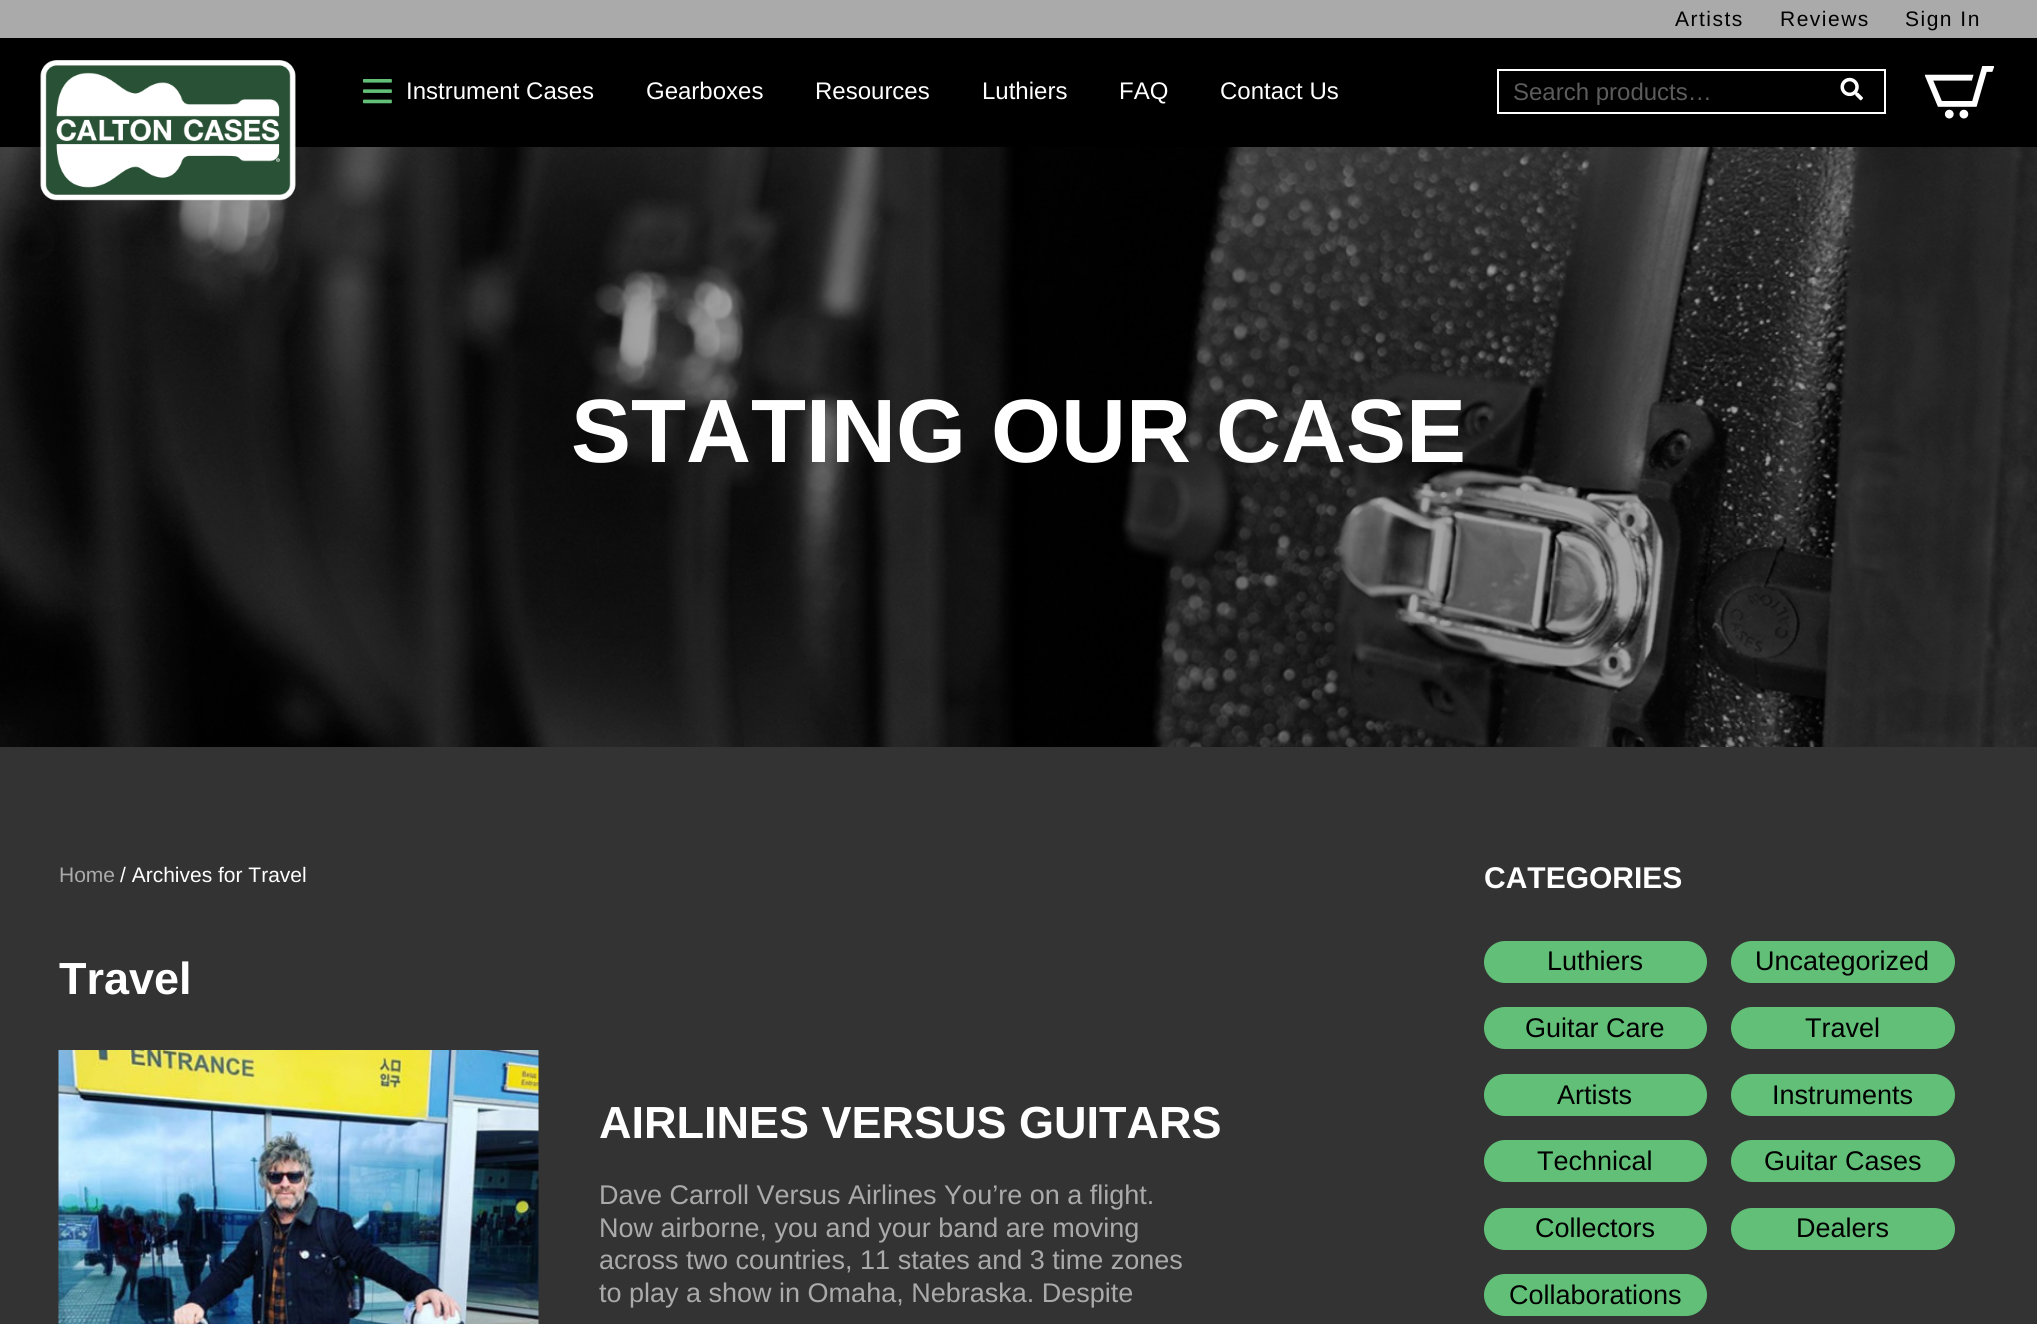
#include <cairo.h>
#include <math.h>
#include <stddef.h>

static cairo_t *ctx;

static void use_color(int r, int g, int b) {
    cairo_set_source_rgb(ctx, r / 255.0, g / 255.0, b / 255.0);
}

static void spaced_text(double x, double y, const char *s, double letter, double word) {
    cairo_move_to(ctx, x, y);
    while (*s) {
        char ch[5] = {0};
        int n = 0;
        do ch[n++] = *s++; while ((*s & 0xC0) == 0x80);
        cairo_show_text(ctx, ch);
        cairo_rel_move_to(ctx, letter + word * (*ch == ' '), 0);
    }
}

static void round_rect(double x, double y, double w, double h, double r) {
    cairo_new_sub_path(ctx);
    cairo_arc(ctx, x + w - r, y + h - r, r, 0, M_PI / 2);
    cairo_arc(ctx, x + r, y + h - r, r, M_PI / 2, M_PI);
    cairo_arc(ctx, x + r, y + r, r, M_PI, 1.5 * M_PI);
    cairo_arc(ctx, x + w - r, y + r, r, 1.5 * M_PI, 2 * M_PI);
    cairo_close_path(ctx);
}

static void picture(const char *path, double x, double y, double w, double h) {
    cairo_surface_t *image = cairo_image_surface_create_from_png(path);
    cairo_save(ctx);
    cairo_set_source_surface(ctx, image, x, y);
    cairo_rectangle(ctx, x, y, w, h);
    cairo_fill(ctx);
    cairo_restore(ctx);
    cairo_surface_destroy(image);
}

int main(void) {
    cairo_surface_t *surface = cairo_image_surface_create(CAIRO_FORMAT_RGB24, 2037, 1324);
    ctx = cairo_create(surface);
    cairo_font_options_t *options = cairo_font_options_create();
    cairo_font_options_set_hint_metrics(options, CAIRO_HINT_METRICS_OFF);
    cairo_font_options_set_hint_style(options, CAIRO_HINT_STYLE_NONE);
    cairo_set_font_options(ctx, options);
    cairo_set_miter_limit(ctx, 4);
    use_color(51, 51, 51);
    cairo_paint(ctx);
    use_color(170, 170, 170);
    cairo_rectangle(ctx, 0, 0, 2037, 38);
    cairo_fill(ctx);
    cairo_select_font_face(ctx, "Liberation Sans", CAIRO_FONT_SLANT_NORMAL, CAIRO_FONT_WEIGHT_NORMAL);
    cairo_set_font_size(ctx, 21);
    use_color(0, 0, 0);
    spaced_text(1675, 26, "Artists", 1.5, 0);
    spaced_text(1780, 26, "Reviews", 1.5, 0);
    spaced_text(1905, 26, "Sign In", 1.5, 0);
    cairo_rectangle(ctx, 0, 38, 2037, 109);
    cairo_fill(ctx);
    picture("img5.png", 0, 147, 2037, 600);
    picture("img1.png", 40, 60, 256, 141);
    picture("img2.png", 363, 79, 29, 25);
    cairo_set_font_size(ctx, 24);
    use_color(255, 255, 255);
    cairo_move_to(ctx, 406, 99);
    cairo_show_text(ctx, "Instrument Cases");
    cairo_move_to(ctx, 646, 99);
    cairo_show_text(ctx, "Gearboxes");
    cairo_move_to(ctx, 815, 99);
    cairo_show_text(ctx, "Resources");
    cairo_move_to(ctx, 982, 99);
    cairo_show_text(ctx, "Luthiers");
    cairo_move_to(ctx, 1119, 99);
    cairo_show_text(ctx, "FAQ");
    cairo_move_to(ctx, 1220, 99);
    cairo_show_text(ctx, "Contact Us");
    cairo_rectangle(ctx, 1498, 70, 387, 43);
    cairo_stroke(ctx);
    use_color(92, 92, 92);
    cairo_move_to(ctx, 1513, 100);
    cairo_show_text(ctx, "Search products…");
    picture("img3.png", 1840, 77, 23, 24);
    picture("img4.png", 1925, 66, 69, 53);
    cairo_select_font_face(ctx, "Liberation Sans", CAIRO_FONT_SLANT_NORMAL, CAIRO_FONT_WEIGHT_BOLD);
    cairo_set_font_size(ctx, 90);
    use_color(255, 255, 255);
    cairo_move_to(ctx, 571, 462);
    cairo_show_text(ctx, "STATING OUR CASE");
    cairo_select_font_face(ctx, "Liberation Sans", CAIRO_FONT_SLANT_NORMAL, CAIRO_FONT_WEIGHT_NORMAL);
    cairo_set_font_size(ctx, 21);
    use_color(170, 170, 170);
    cairo_move_to(ctx, 59, 882);
    cairo_show_text(ctx, "Home");
    use_color(255, 255, 255);
    cairo_move_to(ctx, 120, 882);
    cairo_show_text(ctx, "/ Archives for Travel");
    cairo_select_font_face(ctx, "Liberation Sans", CAIRO_FONT_SLANT_NORMAL, CAIRO_FONT_WEIGHT_BOLD);
    cairo_set_font_size(ctx, 45);
    cairo_move_to(ctx, 59, 994);
    cairo_show_text(ctx, "Travel");
    picture("img6.png", 58, 1050, 481, 274);
    cairo_move_to(ctx, 599, 1138);
    cairo_show_text(ctx, "AIRLINES VERSUS GUITARS");
    cairo_select_font_face(ctx, "Liberation Sans", CAIRO_FONT_SLANT_NORMAL, CAIRO_FONT_WEIGHT_NORMAL);
    cairo_set_font_size(ctx, 27);
    use_color(170, 170, 170);
    cairo_move_to(ctx, 599, 1204);
    cairo_show_text(ctx, "Dave Carroll Versus Airlines You’re on a flight.");
    cairo_move_to(ctx, 599, 1237);
    cairo_show_text(ctx, "Now airborne, you and your band are moving");
    cairo_move_to(ctx, 599, 1269);
    cairo_show_text(ctx, "across two countries, 11 states and 3 time zones");
    cairo_move_to(ctx, 599, 1302);
    cairo_show_text(ctx, "to play a show in Omaha, Nebraska. Despite");
    cairo_select_font_face(ctx, "Liberation Sans", CAIRO_FONT_SLANT_NORMAL, CAIRO_FONT_WEIGHT_BOLD);
    cairo_set_font_size(ctx, 30);
    use_color(255, 255, 255);
    cairo_move_to(ctx, 1484, 888);
    cairo_show_text(ctx, "CATEGORIES");
    use_color(98, 191, 119);
    round_rect(1484, 941, 223, 42, 21);
    cairo_fill(ctx);
    cairo_select_font_face(ctx, "Liberation Sans", CAIRO_FONT_SLANT_NORMAL, CAIRO_FONT_WEIGHT_NORMAL);
    cairo_set_font_size(ctx, 27);
    use_color(0, 0, 0);
    cairo_move_to(ctx, 1547, 970);
    cairo_show_text(ctx, "Luthiers");
    use_color(98, 191, 119);
    round_rect(1731, 941, 224, 42, 21);
    cairo_fill(ctx);
    use_color(0, 0, 0);
    cairo_move_to(ctx, 1755, 970);
    cairo_show_text(ctx, "Uncategorized");
    use_color(98, 191, 119);
    round_rect(1484, 1007, 223, 42, 21);
    cairo_fill(ctx);
    use_color(0, 0, 0);
    cairo_move_to(ctx, 1525, 1037);
    cairo_show_text(ctx, "Guitar Care");
    use_color(98, 191, 119);
    round_rect(1731, 1007, 224, 42, 21);
    cairo_fill(ctx);
    use_color(0, 0, 0);
    cairo_move_to(ctx, 1805, 1037);
    cairo_show_text(ctx, "Travel");
    use_color(98, 191, 119);
    round_rect(1484, 1074, 223, 42, 21);
    cairo_fill(ctx);
    use_color(0, 0, 0);
    cairo_move_to(ctx, 1557, 1104);
    cairo_show_text(ctx, "Artists");
    use_color(98, 191, 119);
    round_rect(1731, 1074, 224, 42, 21);
    cairo_fill(ctx);
    use_color(0, 0, 0);
    cairo_move_to(ctx, 1772, 1104);
    cairo_show_text(ctx, "Instruments");
    use_color(98, 191, 119);
    round_rect(1484, 1140, 223, 42, 21);
    cairo_fill(ctx);
    use_color(0, 0, 0);
    cairo_move_to(ctx, 1537, 1170);
    cairo_show_text(ctx, "Technical");
    use_color(98, 191, 119);
    round_rect(1731, 1140, 224, 42, 21);
    cairo_fill(ctx);
    use_color(0, 0, 0);
    cairo_move_to(ctx, 1764, 1170);
    cairo_show_text(ctx, "Guitar Cases");
    use_color(98, 191, 119);
    round_rect(1484, 1208, 223, 42, 21);
    cairo_fill(ctx);
    use_color(0, 0, 0);
    cairo_move_to(ctx, 1535, 1237);
    cairo_show_text(ctx, "Collectors");
    use_color(98, 191, 119);
    round_rect(1731, 1208, 224, 42, 21);
    cairo_fill(ctx);
    use_color(0, 0, 0);
    cairo_move_to(ctx, 1796, 1237);
    cairo_show_text(ctx, "Dealers");
    use_color(98, 191, 119);
    round_rect(1484, 1274, 223, 42, 21);
    cairo_fill(ctx);
    use_color(0, 0, 0);
    cairo_move_to(ctx, 1509, 1304);
    cairo_show_text(ctx, "Collaborations");
    cairo_surface_write_to_png(surface, "result.png");
    cairo_font_options_destroy(options);
    cairo_destroy(ctx);
    cairo_surface_destroy(surface);
    return 0;
}
